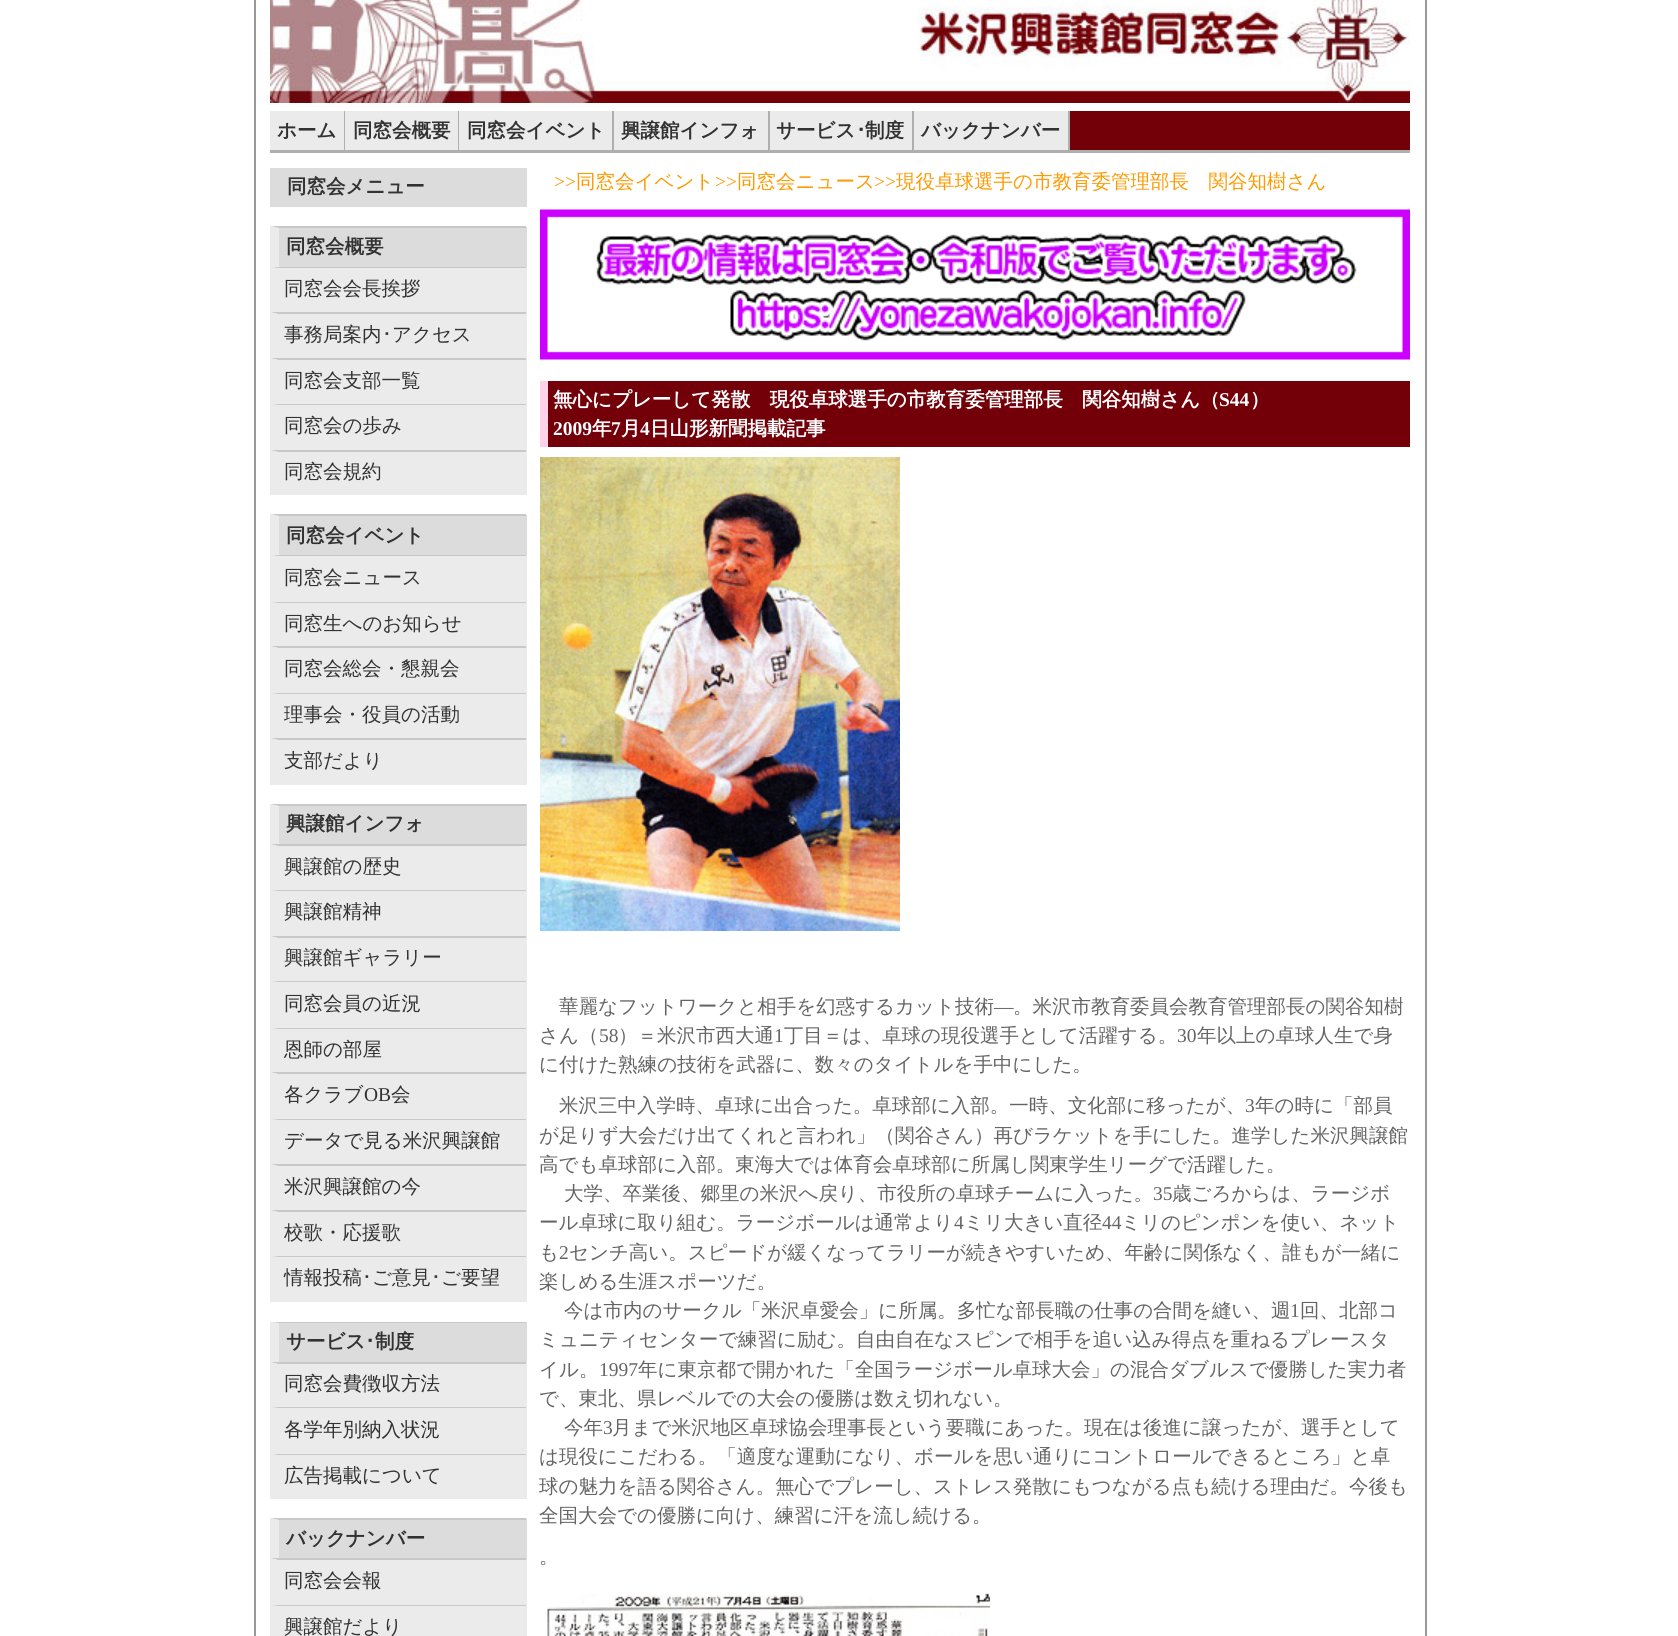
#include <cairo.h>
#include <math.h>
#include <stddef.h>

static cairo_t *ctx;

static void use_color(int r, int g, int b) {
    cairo_set_source_rgb(ctx, r / 255.0, g / 255.0, b / 255.0);
}

static void picture(const char *path, double x, double y, double w, double h) {
    cairo_surface_t *image = cairo_image_surface_create_from_png(path);
    cairo_save(ctx);
    cairo_set_source_surface(ctx, image, x, y);
    cairo_rectangle(ctx, x, y, w, h);
    cairo_fill(ctx);
    cairo_restore(ctx);
    cairo_surface_destroy(image);
}

int main(void) {
    cairo_surface_t *surface = cairo_image_surface_create(CAIRO_FORMAT_RGB24, 1678, 1636);
    ctx = cairo_create(surface);
    cairo_font_options_t *options = cairo_font_options_create();
    cairo_font_options_set_hint_metrics(options, CAIRO_HINT_METRICS_OFF);
    cairo_font_options_set_hint_style(options, CAIRO_HINT_STYLE_NONE);
    cairo_set_font_options(ctx, options);
    cairo_set_miter_limit(ctx, 4);
    use_color(255, 255, 255);
    cairo_paint(ctx);
    cairo_rectangle(ctx, 255, -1, 1171, 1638);
    use_color(153, 153, 153);
    cairo_stroke(ctx);
    picture("img1.png", 270, 0, 1140, 103);
    use_color(115, 0, 8);
    cairo_rectangle(ctx, 1070, 111, 340, 39);
    cairo_fill(ctx);
    use_color(175, 175, 175);
    cairo_rectangle(ctx, 270, 150, 1140, 3);
    cairo_fill(ctx);
    use_color(235, 235, 235);
    cairo_rectangle(ctx, 270, 111, 74, 39);
    cairo_fill(ctx);
    use_color(175, 175, 175);
    cairo_rectangle(ctx, 344, 111, 1, 39);
    cairo_fill(ctx);
    cairo_select_font_face(ctx, "WenQuanYi Zen Hei", CAIRO_FONT_SLANT_NORMAL, CAIRO_FONT_WEIGHT_BOLD);
    cairo_set_font_size(ctx, 19.5);
    use_color(50, 50, 50);
    cairo_move_to(ctx, 277, 137);
    cairo_show_text(ctx, "ホーム");
    use_color(235, 235, 235);
    cairo_rectangle(ctx, 345, 111, 113, 39);
    cairo_fill(ctx);
    use_color(175, 175, 175);
    cairo_rectangle(ctx, 458, 111, 1, 39);
    cairo_fill(ctx);
    use_color(50, 50, 50);
    cairo_move_to(ctx, 353, 137);
    cairo_show_text(ctx, "同窓会概要");
    use_color(235, 235, 235);
    cairo_rectangle(ctx, 459, 111, 153, 39);
    cairo_fill(ctx);
    use_color(175, 175, 175);
    cairo_rectangle(ctx, 612, 111, 2, 39);
    cairo_fill(ctx);
    use_color(50, 50, 50);
    cairo_move_to(ctx, 467, 137);
    cairo_show_text(ctx, "同窓会イベント");
    use_color(235, 235, 235);
    cairo_rectangle(ctx, 614, 111, 154, 39);
    cairo_fill(ctx);
    use_color(175, 175, 175);
    cairo_rectangle(ctx, 768, 111, 2, 39);
    cairo_fill(ctx);
    use_color(50, 50, 50);
    cairo_move_to(ctx, 621, 137);
    cairo_show_text(ctx, "興譲館インフォ");
    use_color(235, 235, 235);
    cairo_rectangle(ctx, 770, 111, 142, 39);
    cairo_fill(ctx);
    use_color(175, 175, 175);
    cairo_rectangle(ctx, 912, 111, 2, 39);
    cairo_fill(ctx);
    use_color(50, 50, 50);
    cairo_move_to(ctx, 776, 137);
    cairo_show_text(ctx, "サービス");
    cairo_select_font_face(ctx, "IPAGothic", CAIRO_FONT_SLANT_NORMAL, CAIRO_FONT_WEIGHT_BOLD);
    cairo_move_to(ctx, 856, 137);
    cairo_show_text(ctx, "･");
    cairo_select_font_face(ctx, "WenQuanYi Zen Hei", CAIRO_FONT_SLANT_NORMAL, CAIRO_FONT_WEIGHT_BOLD);
    cairo_move_to(ctx, 865, 137);
    cairo_show_text(ctx, "制度");
    use_color(235, 235, 235);
    cairo_rectangle(ctx, 914, 111, 154, 39);
    cairo_fill(ctx);
    use_color(175, 175, 175);
    cairo_rectangle(ctx, 1068, 111, 2, 39);
    cairo_fill(ctx);
    use_color(50, 50, 50);
    cairo_move_to(ctx, 921, 137);
    cairo_show_text(ctx, "バックナンバー");
    use_color(220, 220, 220);
    cairo_rectangle(ctx, 270, 168, 257, 39);
    cairo_fill(ctx);
    use_color(50, 50, 50);
    cairo_move_to(ctx, 287, 193);
    cairo_show_text(ctx, "同窓会メニュー");
    use_color(220, 220, 220);
    cairo_rectangle(ctx, 274, 227, 253, 40);
    cairo_fill(ctx);
    use_color(200, 200, 200);
    cairo_new_path(ctx);
    cairo_move_to(ctx, 270, 226);
    cairo_line_to(ctx, 526, 226);
    cairo_line_to(ctx, 526, 228);
    cairo_line_to(ctx, 279, 228);
    cairo_close_path(ctx);
    cairo_fill(ctx);
    use_color(235, 235, 235);
    cairo_new_path(ctx);
    cairo_move_to(ctx, 270, 267);
    cairo_line_to(ctx, 270, 226);
    cairo_line_to(ctx, 279, 228);
    cairo_line_to(ctx, 279, 267);
    cairo_close_path(ctx);
    cairo_fill(ctx);
    use_color(50, 50, 50);
    cairo_move_to(ctx, 286, 253);
    cairo_show_text(ctx, "同窓会概要");
    use_color(235, 235, 235);
    cairo_rectangle(ctx, 270, 267, 257, 92);
    cairo_fill(ctx);
    use_color(200, 200, 200);
    cairo_new_path(ctx);
    cairo_move_to(ctx, 270, 267);
    cairo_line_to(ctx, 526, 267);
    cairo_line_to(ctx, 526, 268);
    cairo_line_to(ctx, 278, 268);
    cairo_close_path(ctx);
    cairo_fill(ctx);
    use_color(235, 235, 235);
    cairo_new_path(ctx);
    cairo_move_to(ctx, 270, 312);
    cairo_line_to(ctx, 270, 267);
    cairo_line_to(ctx, 278, 268);
    cairo_line_to(ctx, 278, 312);
    cairo_close_path(ctx);
    cairo_fill(ctx);
    cairo_select_font_face(ctx, "WenQuanYi Zen Hei Medium", CAIRO_FONT_SLANT_NORMAL, CAIRO_FONT_WEIGHT_NORMAL);
    use_color(50, 50, 50);
    cairo_move_to(ctx, 284, 295);
    cairo_show_text(ctx, "同窓会会長挨拶");
    use_color(200, 200, 200);
    cairo_new_path(ctx);
    cairo_move_to(ctx, 270, 312);
    cairo_line_to(ctx, 526, 312);
    cairo_line_to(ctx, 526, 314);
    cairo_line_to(ctx, 278, 314);
    cairo_close_path(ctx);
    cairo_fill(ctx);
    use_color(235, 235, 235);
    cairo_new_path(ctx);
    cairo_move_to(ctx, 270, 358);
    cairo_line_to(ctx, 270, 312);
    cairo_line_to(ctx, 278, 314);
    cairo_line_to(ctx, 278, 358);
    cairo_close_path(ctx);
    cairo_fill(ctx);
    use_color(50, 50, 50);
    cairo_move_to(ctx, 284, 341);
    cairo_show_text(ctx, "事務局案内");
    cairo_select_font_face(ctx, "IPAGothic", CAIRO_FONT_SLANT_NORMAL, CAIRO_FONT_WEIGHT_NORMAL);
    cairo_move_to(ctx, 382, 341);
    cairo_show_text(ctx, "･");
    cairo_select_font_face(ctx, "WenQuanYi Zen Hei Medium", CAIRO_FONT_SLANT_NORMAL, CAIRO_FONT_WEIGHT_NORMAL);
    cairo_move_to(ctx, 392, 341);
    cairo_show_text(ctx, "アクセス");
    use_color(235, 235, 235);
    cairo_rectangle(ctx, 274, 359, 253, 45);
    cairo_fill(ctx);
    use_color(200, 200, 200);
    cairo_new_path(ctx);
    cairo_move_to(ctx, 270, 358);
    cairo_line_to(ctx, 526, 358);
    cairo_line_to(ctx, 526, 360);
    cairo_line_to(ctx, 278, 360);
    cairo_close_path(ctx);
    cairo_fill(ctx);
    use_color(235, 235, 235);
    cairo_new_path(ctx);
    cairo_move_to(ctx, 270, 404);
    cairo_line_to(ctx, 270, 358);
    cairo_line_to(ctx, 278, 360);
    cairo_line_to(ctx, 278, 404);
    cairo_close_path(ctx);
    cairo_fill(ctx);
    use_color(50, 50, 50);
    cairo_move_to(ctx, 284, 387);
    cairo_show_text(ctx, "同窓会支部一覧");
    use_color(235, 235, 235);
    cairo_rectangle(ctx, 270, 404, 257, 91);
    cairo_fill(ctx);
    use_color(200, 200, 200);
    cairo_new_path(ctx);
    cairo_move_to(ctx, 270, 404);
    cairo_line_to(ctx, 526, 404);
    cairo_line_to(ctx, 526, 405);
    cairo_line_to(ctx, 278, 405);
    cairo_close_path(ctx);
    cairo_fill(ctx);
    use_color(235, 235, 235);
    cairo_new_path(ctx);
    cairo_move_to(ctx, 270, 450);
    cairo_line_to(ctx, 270, 404);
    cairo_line_to(ctx, 278, 405);
    cairo_line_to(ctx, 278, 450);
    cairo_close_path(ctx);
    cairo_fill(ctx);
    use_color(50, 50, 50);
    cairo_move_to(ctx, 284, 432);
    cairo_show_text(ctx, "同窓会の歩み");
    use_color(200, 200, 200);
    cairo_new_path(ctx);
    cairo_move_to(ctx, 270, 450);
    cairo_line_to(ctx, 526, 450);
    cairo_line_to(ctx, 526, 452);
    cairo_line_to(ctx, 278, 452);
    cairo_close_path(ctx);
    cairo_fill(ctx);
    use_color(235, 235, 235);
    cairo_new_path(ctx);
    cairo_move_to(ctx, 270, 495);
    cairo_line_to(ctx, 270, 450);
    cairo_line_to(ctx, 278, 452);
    cairo_line_to(ctx, 278, 495);
    cairo_close_path(ctx);
    cairo_fill(ctx);
    use_color(50, 50, 50);
    cairo_move_to(ctx, 284, 478);
    cairo_show_text(ctx, "同窓会規約");
    use_color(220, 220, 220);
    cairo_rectangle(ctx, 274, 515, 253, 40);
    cairo_fill(ctx);
    use_color(200, 200, 200);
    cairo_new_path(ctx);
    cairo_move_to(ctx, 270, 514);
    cairo_line_to(ctx, 526, 514);
    cairo_line_to(ctx, 526, 516);
    cairo_line_to(ctx, 279, 516);
    cairo_close_path(ctx);
    cairo_fill(ctx);
    use_color(235, 235, 235);
    cairo_new_path(ctx);
    cairo_move_to(ctx, 270, 555);
    cairo_line_to(ctx, 270, 514);
    cairo_line_to(ctx, 279, 516);
    cairo_line_to(ctx, 279, 555);
    cairo_close_path(ctx);
    cairo_fill(ctx);
    cairo_select_font_face(ctx, "WenQuanYi Zen Hei", CAIRO_FONT_SLANT_NORMAL, CAIRO_FONT_WEIGHT_BOLD);
    use_color(50, 50, 50);
    cairo_move_to(ctx, 286, 542);
    cairo_show_text(ctx, "同窓会イベント");
    use_color(235, 235, 235);
    cairo_rectangle(ctx, 270, 555, 257, 92);
    cairo_fill(ctx);
    use_color(200, 200, 200);
    cairo_new_path(ctx);
    cairo_move_to(ctx, 270, 555);
    cairo_line_to(ctx, 526, 555);
    cairo_line_to(ctx, 526, 556);
    cairo_line_to(ctx, 278, 556);
    cairo_close_path(ctx);
    cairo_fill(ctx);
    use_color(235, 235, 235);
    cairo_new_path(ctx);
    cairo_move_to(ctx, 270, 602);
    cairo_line_to(ctx, 270, 555);
    cairo_line_to(ctx, 278, 556);
    cairo_line_to(ctx, 278, 602);
    cairo_close_path(ctx);
    cairo_fill(ctx);
    cairo_select_font_face(ctx, "WenQuanYi Zen Hei Medium", CAIRO_FONT_SLANT_NORMAL, CAIRO_FONT_WEIGHT_NORMAL);
    use_color(50, 50, 50);
    cairo_move_to(ctx, 284, 584);
    cairo_show_text(ctx, "同窓会ニュース");
    use_color(200, 200, 200);
    cairo_new_path(ctx);
    cairo_move_to(ctx, 270, 602);
    cairo_line_to(ctx, 526, 602);
    cairo_line_to(ctx, 526, 603);
    cairo_line_to(ctx, 278, 603);
    cairo_close_path(ctx);
    cairo_fill(ctx);
    use_color(235, 235, 235);
    cairo_new_path(ctx);
    cairo_move_to(ctx, 270, 646);
    cairo_line_to(ctx, 270, 602);
    cairo_line_to(ctx, 278, 603);
    cairo_line_to(ctx, 278, 646);
    cairo_close_path(ctx);
    cairo_fill(ctx);
    use_color(50, 50, 50);
    cairo_move_to(ctx, 284, 630);
    cairo_show_text(ctx, "同窓生へのお知らせ");
    use_color(235, 235, 235);
    cairo_rectangle(ctx, 274, 647, 253, 46);
    cairo_fill(ctx);
    use_color(200, 200, 200);
    cairo_new_path(ctx);
    cairo_move_to(ctx, 270, 646);
    cairo_line_to(ctx, 526, 646);
    cairo_line_to(ctx, 526, 648);
    cairo_line_to(ctx, 278, 648);
    cairo_close_path(ctx);
    cairo_fill(ctx);
    use_color(235, 235, 235);
    cairo_new_path(ctx);
    cairo_move_to(ctx, 270, 693);
    cairo_line_to(ctx, 270, 646);
    cairo_line_to(ctx, 278, 648);
    cairo_line_to(ctx, 278, 693);
    cairo_close_path(ctx);
    cairo_fill(ctx);
    use_color(50, 50, 50);
    cairo_move_to(ctx, 284, 675);
    cairo_show_text(ctx, "同窓会総会・懇親会");
    use_color(235, 235, 235);
    cairo_rectangle(ctx, 270, 693, 257, 92);
    cairo_fill(ctx);
    use_color(200, 200, 200);
    cairo_new_path(ctx);
    cairo_move_to(ctx, 270, 693);
    cairo_line_to(ctx, 526, 693);
    cairo_line_to(ctx, 526, 694);
    cairo_line_to(ctx, 278, 694);
    cairo_close_path(ctx);
    cairo_fill(ctx);
    use_color(235, 235, 235);
    cairo_new_path(ctx);
    cairo_move_to(ctx, 270, 738);
    cairo_line_to(ctx, 270, 693);
    cairo_line_to(ctx, 278, 694);
    cairo_line_to(ctx, 278, 738);
    cairo_close_path(ctx);
    cairo_fill(ctx);
    use_color(50, 50, 50);
    cairo_move_to(ctx, 284, 721);
    cairo_show_text(ctx, "理事会・役員の活動");
    use_color(200, 200, 200);
    cairo_new_path(ctx);
    cairo_move_to(ctx, 270, 738);
    cairo_line_to(ctx, 526, 738);
    cairo_line_to(ctx, 526, 740);
    cairo_line_to(ctx, 278, 740);
    cairo_close_path(ctx);
    cairo_fill(ctx);
    use_color(235, 235, 235);
    cairo_new_path(ctx);
    cairo_move_to(ctx, 270, 784);
    cairo_line_to(ctx, 270, 738);
    cairo_line_to(ctx, 278, 740);
    cairo_line_to(ctx, 278, 784);
    cairo_close_path(ctx);
    cairo_fill(ctx);
    use_color(50, 50, 50);
    cairo_move_to(ctx, 284, 767);
    cairo_show_text(ctx, "支部だより");
    use_color(220, 220, 220);
    cairo_rectangle(ctx, 270, 804, 257, 41);
    cairo_fill(ctx);
    use_color(200, 200, 200);
    cairo_new_path(ctx);
    cairo_move_to(ctx, 270, 804);
    cairo_line_to(ctx, 526, 804);
    cairo_line_to(ctx, 526, 806);
    cairo_line_to(ctx, 279, 806);
    cairo_close_path(ctx);
    cairo_fill(ctx);
    use_color(235, 235, 235);
    cairo_new_path(ctx);
    cairo_move_to(ctx, 270, 844);
    cairo_line_to(ctx, 270, 804);
    cairo_line_to(ctx, 279, 806);
    cairo_line_to(ctx, 279, 844);
    cairo_close_path(ctx);
    cairo_fill(ctx);
    cairo_select_font_face(ctx, "WenQuanYi Zen Hei", CAIRO_FONT_SLANT_NORMAL, CAIRO_FONT_WEIGHT_BOLD);
    use_color(50, 50, 50);
    cairo_move_to(ctx, 286, 830);
    cairo_show_text(ctx, "興譲館インフォ");
    use_color(235, 235, 235);
    cairo_rectangle(ctx, 274, 845, 253, 45);
    cairo_fill(ctx);
    use_color(200, 200, 200);
    cairo_new_path(ctx);
    cairo_move_to(ctx, 270, 844);
    cairo_line_to(ctx, 526, 844);
    cairo_line_to(ctx, 526, 846);
    cairo_line_to(ctx, 278, 846);
    cairo_close_path(ctx);
    cairo_fill(ctx);
    use_color(235, 235, 235);
    cairo_new_path(ctx);
    cairo_move_to(ctx, 270, 890);
    cairo_line_to(ctx, 270, 844);
    cairo_line_to(ctx, 278, 846);
    cairo_line_to(ctx, 278, 890);
    cairo_close_path(ctx);
    cairo_fill(ctx);
    cairo_select_font_face(ctx, "WenQuanYi Zen Hei Medium", CAIRO_FONT_SLANT_NORMAL, CAIRO_FONT_WEIGHT_NORMAL);
    use_color(50, 50, 50);
    cairo_move_to(ctx, 284, 873);
    cairo_show_text(ctx, "興譲館の歴史");
    use_color(235, 235, 235);
    cairo_rectangle(ctx, 270, 890, 257, 183);
    cairo_fill(ctx);
    use_color(200, 200, 200);
    cairo_new_path(ctx);
    cairo_move_to(ctx, 270, 890);
    cairo_line_to(ctx, 526, 890);
    cairo_line_to(ctx, 526, 891);
    cairo_line_to(ctx, 278, 891);
    cairo_close_path(ctx);
    cairo_fill(ctx);
    use_color(235, 235, 235);
    cairo_new_path(ctx);
    cairo_move_to(ctx, 270, 936);
    cairo_line_to(ctx, 270, 890);
    cairo_line_to(ctx, 278, 891);
    cairo_line_to(ctx, 278, 936);
    cairo_close_path(ctx);
    cairo_fill(ctx);
    use_color(50, 50, 50);
    cairo_move_to(ctx, 284, 918);
    cairo_show_text(ctx, "興譲館精神");
    use_color(200, 200, 200);
    cairo_new_path(ctx);
    cairo_move_to(ctx, 270, 936);
    cairo_line_to(ctx, 526, 936);
    cairo_line_to(ctx, 526, 938);
    cairo_line_to(ctx, 278, 938);
    cairo_close_path(ctx);
    cairo_fill(ctx);
    use_color(235, 235, 235);
    cairo_new_path(ctx);
    cairo_move_to(ctx, 270, 981);
    cairo_line_to(ctx, 270, 936);
    cairo_line_to(ctx, 278, 938);
    cairo_line_to(ctx, 278, 981);
    cairo_close_path(ctx);
    cairo_fill(ctx);
    use_color(50, 50, 50);
    cairo_move_to(ctx, 284, 964);
    cairo_show_text(ctx, "興譲館ギャラリー");
    use_color(200, 200, 200);
    cairo_new_path(ctx);
    cairo_move_to(ctx, 270, 981);
    cairo_line_to(ctx, 526, 981);
    cairo_line_to(ctx, 526, 982);
    cairo_line_to(ctx, 278, 982);
    cairo_close_path(ctx);
    cairo_fill(ctx);
    use_color(235, 235, 235);
    cairo_new_path(ctx);
    cairo_move_to(ctx, 270, 1028);
    cairo_line_to(ctx, 270, 981);
    cairo_line_to(ctx, 278, 982);
    cairo_line_to(ctx, 278, 1028);
    cairo_close_path(ctx);
    cairo_fill(ctx);
    use_color(50, 50, 50);
    cairo_move_to(ctx, 284, 1010);
    cairo_show_text(ctx, "同窓会員の近況");
    use_color(200, 200, 200);
    cairo_new_path(ctx);
    cairo_move_to(ctx, 270, 1028);
    cairo_line_to(ctx, 526, 1028);
    cairo_line_to(ctx, 526, 1029);
    cairo_line_to(ctx, 278, 1029);
    cairo_close_path(ctx);
    cairo_fill(ctx);
    use_color(235, 235, 235);
    cairo_new_path(ctx);
    cairo_move_to(ctx, 270, 1072);
    cairo_line_to(ctx, 270, 1028);
    cairo_line_to(ctx, 278, 1029);
    cairo_line_to(ctx, 278, 1072);
    cairo_close_path(ctx);
    cairo_fill(ctx);
    use_color(50, 50, 50);
    cairo_move_to(ctx, 284, 1056);
    cairo_show_text(ctx, "恩師の部屋");
    use_color(235, 235, 235);
    cairo_rectangle(ctx, 274, 1073, 253, 46);
    cairo_fill(ctx);
    use_color(200, 200, 200);
    cairo_new_path(ctx);
    cairo_move_to(ctx, 270, 1072);
    cairo_line_to(ctx, 526, 1072);
    cairo_line_to(ctx, 526, 1074);
    cairo_line_to(ctx, 278, 1074);
    cairo_close_path(ctx);
    cairo_fill(ctx);
    use_color(235, 235, 235);
    cairo_new_path(ctx);
    cairo_move_to(ctx, 270, 1119);
    cairo_line_to(ctx, 270, 1072);
    cairo_line_to(ctx, 278, 1074);
    cairo_line_to(ctx, 278, 1119);
    cairo_close_path(ctx);
    cairo_fill(ctx);
    use_color(50, 50, 50);
    cairo_move_to(ctx, 284, 1101);
    cairo_show_text(ctx, "各クラブ");
    cairo_select_font_face(ctx, "Liberation Serif", CAIRO_FONT_SLANT_NORMAL, CAIRO_FONT_WEIGHT_NORMAL);
    cairo_move_to(ctx, 364, 1101);
    cairo_show_text(ctx, "OB");
    cairo_select_font_face(ctx, "WenQuanYi Zen Hei Medium", CAIRO_FONT_SLANT_NORMAL, CAIRO_FONT_WEIGHT_NORMAL);
    cairo_move_to(ctx, 391, 1101);
    cairo_show_text(ctx, "会");
    use_color(235, 235, 235);
    cairo_rectangle(ctx, 270, 1119, 257, 92);
    cairo_fill(ctx);
    use_color(200, 200, 200);
    cairo_new_path(ctx);
    cairo_move_to(ctx, 270, 1119);
    cairo_line_to(ctx, 526, 1119);
    cairo_line_to(ctx, 526, 1120);
    cairo_line_to(ctx, 278, 1120);
    cairo_close_path(ctx);
    cairo_fill(ctx);
    use_color(235, 235, 235);
    cairo_new_path(ctx);
    cairo_move_to(ctx, 270, 1164);
    cairo_line_to(ctx, 270, 1119);
    cairo_line_to(ctx, 278, 1120);
    cairo_line_to(ctx, 278, 1164);
    cairo_close_path(ctx);
    cairo_fill(ctx);
    use_color(50, 50, 50);
    cairo_move_to(ctx, 284, 1147);
    cairo_show_text(ctx, "データで見る米沢興譲館");
    use_color(200, 200, 200);
    cairo_new_path(ctx);
    cairo_move_to(ctx, 270, 1164);
    cairo_line_to(ctx, 526, 1164);
    cairo_line_to(ctx, 526, 1166);
    cairo_line_to(ctx, 278, 1166);
    cairo_close_path(ctx);
    cairo_fill(ctx);
    use_color(235, 235, 235);
    cairo_new_path(ctx);
    cairo_move_to(ctx, 270, 1210);
    cairo_line_to(ctx, 270, 1164);
    cairo_line_to(ctx, 278, 1166);
    cairo_line_to(ctx, 278, 1210);
    cairo_close_path(ctx);
    cairo_fill(ctx);
    use_color(50, 50, 50);
    cairo_move_to(ctx, 284, 1193);
    cairo_show_text(ctx, "米沢興譲館の今");
    use_color(235, 235, 235);
    cairo_rectangle(ctx, 274, 1211, 253, 45);
    cairo_fill(ctx);
    use_color(200, 200, 200);
    cairo_new_path(ctx);
    cairo_move_to(ctx, 270, 1210);
    cairo_line_to(ctx, 526, 1210);
    cairo_line_to(ctx, 526, 1212);
    cairo_line_to(ctx, 278, 1212);
    cairo_close_path(ctx);
    cairo_fill(ctx);
    use_color(235, 235, 235);
    cairo_new_path(ctx);
    cairo_move_to(ctx, 270, 1256);
    cairo_line_to(ctx, 270, 1210);
    cairo_line_to(ctx, 278, 1212);
    cairo_line_to(ctx, 278, 1256);
    cairo_close_path(ctx);
    cairo_fill(ctx);
    use_color(50, 50, 50);
    cairo_move_to(ctx, 284, 1239);
    cairo_show_text(ctx, "校歌・応援歌");
    use_color(235, 235, 235);
    cairo_rectangle(ctx, 270, 1256, 257, 46);
    cairo_fill(ctx);
    use_color(200, 200, 200);
    cairo_new_path(ctx);
    cairo_move_to(ctx, 270, 1256);
    cairo_line_to(ctx, 526, 1256);
    cairo_line_to(ctx, 526, 1257);
    cairo_line_to(ctx, 278, 1257);
    cairo_close_path(ctx);
    cairo_fill(ctx);
    use_color(235, 235, 235);
    cairo_new_path(ctx);
    cairo_move_to(ctx, 270, 1302);
    cairo_line_to(ctx, 270, 1256);
    cairo_line_to(ctx, 278, 1257);
    cairo_line_to(ctx, 278, 1302);
    cairo_close_path(ctx);
    cairo_fill(ctx);
    use_color(50, 50, 50);
    cairo_move_to(ctx, 284, 1284);
    cairo_show_text(ctx, "情報投稿");
    cairo_select_font_face(ctx, "IPAGothic", CAIRO_FONT_SLANT_NORMAL, CAIRO_FONT_WEIGHT_NORMAL);
    cairo_move_to(ctx, 362, 1284);
    cairo_show_text(ctx, "･");
    cairo_select_font_face(ctx, "WenQuanYi Zen Hei Medium", CAIRO_FONT_SLANT_NORMAL, CAIRO_FONT_WEIGHT_NORMAL);
    cairo_move_to(ctx, 372, 1284);
    cairo_show_text(ctx, "ご意見");
    cairo_select_font_face(ctx, "IPAGothic", CAIRO_FONT_SLANT_NORMAL, CAIRO_FONT_WEIGHT_NORMAL);
    cairo_move_to(ctx, 431, 1284);
    cairo_show_text(ctx, "･");
    cairo_select_font_face(ctx, "WenQuanYi Zen Hei Medium", CAIRO_FONT_SLANT_NORMAL, CAIRO_FONT_WEIGHT_NORMAL);
    cairo_move_to(ctx, 441, 1284);
    cairo_show_text(ctx, "ご要望");
    use_color(220, 220, 220);
    cairo_rectangle(ctx, 270, 1322, 257, 40);
    cairo_fill(ctx);
    use_color(200, 200, 200);
    cairo_new_path(ctx);
    cairo_move_to(ctx, 270, 1322);
    cairo_line_to(ctx, 526, 1322);
    cairo_line_to(ctx, 526, 1323);
    cairo_line_to(ctx, 279, 1323);
    cairo_close_path(ctx);
    cairo_fill(ctx);
    use_color(235, 235, 235);
    cairo_new_path(ctx);
    cairo_move_to(ctx, 270, 1362);
    cairo_line_to(ctx, 270, 1322);
    cairo_line_to(ctx, 279, 1323);
    cairo_line_to(ctx, 279, 1362);
    cairo_close_path(ctx);
    cairo_fill(ctx);
    cairo_select_font_face(ctx, "WenQuanYi Zen Hei", CAIRO_FONT_SLANT_NORMAL, CAIRO_FONT_WEIGHT_BOLD);
    use_color(50, 50, 50);
    cairo_move_to(ctx, 286, 1348);
    cairo_show_text(ctx, "サービス");
    cairo_select_font_face(ctx, "IPAGothic", CAIRO_FONT_SLANT_NORMAL, CAIRO_FONT_WEIGHT_BOLD);
    cairo_move_to(ctx, 365, 1348);
    cairo_show_text(ctx, "･");
    cairo_select_font_face(ctx, "WenQuanYi Zen Hei", CAIRO_FONT_SLANT_NORMAL, CAIRO_FONT_WEIGHT_BOLD);
    cairo_move_to(ctx, 375, 1348);
    cairo_show_text(ctx, "制度");
    use_color(235, 235, 235);
    cairo_rectangle(ctx, 270, 1362, 257, 137);
    cairo_fill(ctx);
    use_color(200, 200, 200);
    cairo_new_path(ctx);
    cairo_move_to(ctx, 270, 1362);
    cairo_line_to(ctx, 526, 1362);
    cairo_line_to(ctx, 526, 1364);
    cairo_line_to(ctx, 278, 1364);
    cairo_close_path(ctx);
    cairo_fill(ctx);
    use_color(235, 235, 235);
    cairo_new_path(ctx);
    cairo_move_to(ctx, 270, 1407);
    cairo_line_to(ctx, 270, 1362);
    cairo_line_to(ctx, 278, 1364);
    cairo_line_to(ctx, 278, 1407);
    cairo_close_path(ctx);
    cairo_fill(ctx);
    cairo_select_font_face(ctx, "WenQuanYi Zen Hei Medium", CAIRO_FONT_SLANT_NORMAL, CAIRO_FONT_WEIGHT_NORMAL);
    use_color(50, 50, 50);
    cairo_move_to(ctx, 284, 1390);
    cairo_show_text(ctx, "同窓会費徴収方法");
    use_color(200, 200, 200);
    cairo_new_path(ctx);
    cairo_move_to(ctx, 270, 1407);
    cairo_line_to(ctx, 526, 1407);
    cairo_line_to(ctx, 526, 1408);
    cairo_line_to(ctx, 278, 1408);
    cairo_close_path(ctx);
    cairo_fill(ctx);
    use_color(235, 235, 235);
    cairo_new_path(ctx);
    cairo_move_to(ctx, 270, 1454);
    cairo_line_to(ctx, 270, 1407);
    cairo_line_to(ctx, 278, 1408);
    cairo_line_to(ctx, 278, 1454);
    cairo_close_path(ctx);
    cairo_fill(ctx);
    use_color(50, 50, 50);
    cairo_move_to(ctx, 284, 1436);
    cairo_show_text(ctx, "各学年別納入状況");
    use_color(200, 200, 200);
    cairo_new_path(ctx);
    cairo_move_to(ctx, 270, 1454);
    cairo_line_to(ctx, 526, 1454);
    cairo_line_to(ctx, 526, 1455);
    cairo_line_to(ctx, 278, 1455);
    cairo_close_path(ctx);
    cairo_fill(ctx);
    use_color(235, 235, 235);
    cairo_new_path(ctx);
    cairo_move_to(ctx, 270, 1498);
    cairo_line_to(ctx, 270, 1454);
    cairo_line_to(ctx, 278, 1455);
    cairo_line_to(ctx, 278, 1498);
    cairo_close_path(ctx);
    cairo_fill(ctx);
    use_color(50, 50, 50);
    cairo_move_to(ctx, 284, 1482);
    cairo_show_text(ctx, "広告掲載について");
    use_color(220, 220, 220);
    cairo_rectangle(ctx, 270, 1518, 257, 41);
    cairo_fill(ctx);
    use_color(200, 200, 200);
    cairo_new_path(ctx);
    cairo_move_to(ctx, 270, 1518);
    cairo_line_to(ctx, 526, 1518);
    cairo_line_to(ctx, 526, 1520);
    cairo_line_to(ctx, 279, 1520);
    cairo_close_path(ctx);
    cairo_fill(ctx);
    use_color(235, 235, 235);
    cairo_new_path(ctx);
    cairo_move_to(ctx, 270, 1558);
    cairo_line_to(ctx, 270, 1518);
    cairo_line_to(ctx, 279, 1520);
    cairo_line_to(ctx, 279, 1558);
    cairo_close_path(ctx);
    cairo_fill(ctx);
    cairo_select_font_face(ctx, "WenQuanYi Zen Hei", CAIRO_FONT_SLANT_NORMAL, CAIRO_FONT_WEIGHT_BOLD);
    use_color(50, 50, 50);
    cairo_move_to(ctx, 286, 1545);
    cairo_show_text(ctx, "バックナンバー");
    use_color(235, 235, 235);
    cairo_rectangle(ctx, 274, 1559, 253, 46);
    cairo_fill(ctx);
    use_color(200, 200, 200);
    cairo_new_path(ctx);
    cairo_move_to(ctx, 270, 1558);
    cairo_line_to(ctx, 526, 1558);
    cairo_line_to(ctx, 526, 1560);
    cairo_line_to(ctx, 278, 1560);
    cairo_close_path(ctx);
    cairo_fill(ctx);
    use_color(235, 235, 235);
    cairo_new_path(ctx);
    cairo_move_to(ctx, 270, 1605);
    cairo_line_to(ctx, 270, 1558);
    cairo_line_to(ctx, 278, 1560);
    cairo_line_to(ctx, 278, 1605);
    cairo_close_path(ctx);
    cairo_fill(ctx);
    cairo_select_font_face(ctx, "WenQuanYi Zen Hei Medium", CAIRO_FONT_SLANT_NORMAL, CAIRO_FONT_WEIGHT_NORMAL);
    use_color(50, 50, 50);
    cairo_move_to(ctx, 284, 1587);
    cairo_show_text(ctx, "同窓会会報");
    use_color(235, 235, 235);
    cairo_rectangle(ctx, 270, 1605, 257, 31);
    cairo_fill(ctx);
    use_color(200, 200, 200);
    cairo_new_path(ctx);
    cairo_move_to(ctx, 270, 1605);
    cairo_line_to(ctx, 526, 1605);
    cairo_line_to(ctx, 526, 1606);
    cairo_line_to(ctx, 278, 1606);
    cairo_close_path(ctx);
    cairo_fill(ctx);
    use_color(235, 235, 235);
    cairo_new_path(ctx);
    cairo_move_to(ctx, 270, 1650);
    cairo_line_to(ctx, 270, 1605);
    cairo_line_to(ctx, 278, 1606);
    cairo_line_to(ctx, 278, 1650);
    cairo_close_path(ctx);
    cairo_fill(ctx);
    use_color(50, 50, 50);
    cairo_move_to(ctx, 284, 1633);
    cairo_show_text(ctx, "興譲館だより");
    cairo_select_font_face(ctx, "Liberation Serif", CAIRO_FONT_SLANT_NORMAL, CAIRO_FONT_WEIGHT_NORMAL);
    use_color(255, 153, 0);
    cairo_move_to(ctx, 554, 188);
    cairo_show_text(ctx, ">>");
    cairo_select_font_face(ctx, "WenQuanYi Zen Hei Medium", CAIRO_FONT_SLANT_NORMAL, CAIRO_FONT_WEIGHT_NORMAL);
    cairo_move_to(ctx, 576, 188);
    cairo_show_text(ctx, "同窓会イベント");
    cairo_select_font_face(ctx, "Liberation Serif", CAIRO_FONT_SLANT_NORMAL, CAIRO_FONT_WEIGHT_NORMAL);
    cairo_move_to(ctx, 715, 188);
    cairo_show_text(ctx, ">>");
    cairo_select_font_face(ctx, "WenQuanYi Zen Hei Medium", CAIRO_FONT_SLANT_NORMAL, CAIRO_FONT_WEIGHT_NORMAL);
    cairo_move_to(ctx, 737, 188);
    cairo_show_text(ctx, "同窓会ニュース");
    cairo_select_font_face(ctx, "Liberation Serif", CAIRO_FONT_SLANT_NORMAL, CAIRO_FONT_WEIGHT_NORMAL);
    cairo_move_to(ctx, 874, 188);
    cairo_show_text(ctx, ">>");
    cairo_select_font_face(ctx, "WenQuanYi Zen Hei Medium", CAIRO_FONT_SLANT_NORMAL, CAIRO_FONT_WEIGHT_NORMAL);
    cairo_move_to(ctx, 896, 188);
    cairo_show_text(ctx, "現役卓球選手の市教育委管理部長　関谷知樹さん");
    picture("img2.png", 540, 209, 870, 151);
    use_color(115, 0, 8);
    cairo_rectangle(ctx, 548, 381, 862, 66);
    cairo_fill(ctx);
    use_color(255, 210, 233);
    cairo_rectangle(ctx, 540, 381, 8, 66);
    cairo_fill(ctx);
    cairo_select_font_face(ctx, "WenQuanYi Zen Hei", CAIRO_FONT_SLANT_NORMAL, CAIRO_FONT_WEIGHT_BOLD);
    use_color(255, 255, 255);
    cairo_move_to(ctx, 553, 406);
    cairo_show_text(ctx, "無心にプレーして発散　現役卓球選手の市教育委管理部長　関谷知樹さん（");
    cairo_select_font_face(ctx, "Liberation Serif", CAIRO_FONT_SLANT_NORMAL, CAIRO_FONT_WEIGHT_BOLD);
    cairo_move_to(ctx, 1219, 406);
    cairo_show_text(ctx, "S44");
    cairo_select_font_face(ctx, "WenQuanYi Zen Hei", CAIRO_FONT_SLANT_NORMAL, CAIRO_FONT_WEIGHT_BOLD);
    cairo_move_to(ctx, 1250, 406);
    cairo_show_text(ctx, "）");
    cairo_select_font_face(ctx, "Liberation Serif", CAIRO_FONT_SLANT_NORMAL, CAIRO_FONT_WEIGHT_BOLD);
    cairo_move_to(ctx, 553, 435);
    cairo_show_text(ctx, "2009");
    cairo_select_font_face(ctx, "WenQuanYi Zen Hei", CAIRO_FONT_SLANT_NORMAL, CAIRO_FONT_WEIGHT_BOLD);
    cairo_move_to(ctx, 592, 435);
    cairo_show_text(ctx, "年");
    cairo_select_font_face(ctx, "Liberation Serif", CAIRO_FONT_SLANT_NORMAL, CAIRO_FONT_WEIGHT_BOLD);
    cairo_move_to(ctx, 611, 435);
    cairo_show_text(ctx, "7");
    cairo_select_font_face(ctx, "WenQuanYi Zen Hei", CAIRO_FONT_SLANT_NORMAL, CAIRO_FONT_WEIGHT_BOLD);
    cairo_move_to(ctx, 621, 435);
    cairo_show_text(ctx, "月");
    cairo_select_font_face(ctx, "Liberation Serif", CAIRO_FONT_SLANT_NORMAL, CAIRO_FONT_WEIGHT_BOLD);
    cairo_move_to(ctx, 640, 435);
    cairo_show_text(ctx, "4");
    cairo_select_font_face(ctx, "WenQuanYi Zen Hei", CAIRO_FONT_SLANT_NORMAL, CAIRO_FONT_WEIGHT_BOLD);
    cairo_move_to(ctx, 650, 435);
    cairo_show_text(ctx, "日山形新聞掲載記事");
    picture("img3.png", 540, 457, 360, 474);
    cairo_select_font_face(ctx, "WenQuanYi Zen Hei Medium", CAIRO_FONT_SLANT_NORMAL, CAIRO_FONT_WEIGHT_NORMAL);
    use_color(100, 100, 100);
    cairo_move_to(ctx, 559, 1013);
    cairo_show_text(ctx, "華麗なフットワークと相手を幻惑するカット技術");
    cairo_select_font_face(ctx, "Liberation Serif", CAIRO_FONT_SLANT_NORMAL, CAIRO_FONT_WEIGHT_NORMAL);
    cairo_move_to(ctx, 994, 1013);
    cairo_show_text(ctx, "―");
    cairo_select_font_face(ctx, "WenQuanYi Zen Hei Medium", CAIRO_FONT_SLANT_NORMAL, CAIRO_FONT_WEIGHT_NORMAL);
    cairo_move_to(ctx, 1013, 1013);
    cairo_show_text(ctx, "。米沢市教育委員会教育管理部長の関谷知樹");
    cairo_move_to(ctx, 539, 1042);
    cairo_show_text(ctx, "さん（");
    cairo_select_font_face(ctx, "Liberation Serif", CAIRO_FONT_SLANT_NORMAL, CAIRO_FONT_WEIGHT_NORMAL);
    cairo_move_to(ctx, 599, 1042);
    cairo_show_text(ctx, "58");
    cairo_select_font_face(ctx, "WenQuanYi Zen Hei Medium", CAIRO_FONT_SLANT_NORMAL, CAIRO_FONT_WEIGHT_NORMAL);
    cairo_move_to(ctx, 618, 1042);
    cairo_show_text(ctx, "）＝米沢市西大通");
    cairo_select_font_face(ctx, "Liberation Serif", CAIRO_FONT_SLANT_NORMAL, CAIRO_FONT_WEIGHT_NORMAL);
    cairo_move_to(ctx, 774, 1042);
    cairo_show_text(ctx, "1");
    cairo_select_font_face(ctx, "WenQuanYi Zen Hei Medium", CAIRO_FONT_SLANT_NORMAL, CAIRO_FONT_WEIGHT_NORMAL);
    cairo_move_to(ctx, 784, 1042);
    cairo_show_text(ctx, "丁目＝は、卓球の現役選手として活躍する。");
    cairo_select_font_face(ctx, "Liberation Serif", CAIRO_FONT_SLANT_NORMAL, CAIRO_FONT_WEIGHT_NORMAL);
    cairo_move_to(ctx, 1177, 1042);
    cairo_show_text(ctx, "30");
    cairo_select_font_face(ctx, "WenQuanYi Zen Hei Medium", CAIRO_FONT_SLANT_NORMAL, CAIRO_FONT_WEIGHT_NORMAL);
    cairo_move_to(ctx, 1197, 1042);
    cairo_show_text(ctx, "年以上の卓球人生で身");
    cairo_move_to(ctx, 539, 1071);
    cairo_show_text(ctx, "に付けた熟練の技術を武器に、数々のタイトルを手中にした。");
    cairo_move_to(ctx, 559, 1112);
    cairo_show_text(ctx, "米沢三中入学時、卓球に出合った。卓球部に入部。一時、文化部に移ったが、");
    cairo_select_font_face(ctx, "Liberation Serif", CAIRO_FONT_SLANT_NORMAL, CAIRO_FONT_WEIGHT_NORMAL);
    cairo_move_to(ctx, 1245, 1112);
    cairo_show_text(ctx, "3");
    cairo_select_font_face(ctx, "WenQuanYi Zen Hei Medium", CAIRO_FONT_SLANT_NORMAL, CAIRO_FONT_WEIGHT_NORMAL);
    cairo_move_to(ctx, 1255, 1112);
    cairo_show_text(ctx, "年の時に「部員");
    cairo_move_to(ctx, 539, 1142);
    cairo_show_text(ctx, "が足りず大会だけ出てくれと言われ」（関谷さん）再びラケットを手にした。進学した米沢興譲館");
    cairo_move_to(ctx, 539, 1171);
    cairo_show_text(ctx, "高でも卓球部に入部。東海大では体育会卓球部に所属し関東学生リーグで活躍した。");
    cairo_move_to(ctx, 564, 1200);
    cairo_show_text(ctx, "大学、卒業後、郷里の米沢へ戻り、市役所の卓球チームに入った。");
    cairo_select_font_face(ctx, "Liberation Serif", CAIRO_FONT_SLANT_NORMAL, CAIRO_FONT_WEIGHT_NORMAL);
    cairo_move_to(ctx, 1153, 1200);
    cairo_show_text(ctx, "35");
    cairo_select_font_face(ctx, "WenQuanYi Zen Hei Medium", CAIRO_FONT_SLANT_NORMAL, CAIRO_FONT_WEIGHT_NORMAL);
    cairo_move_to(ctx, 1172, 1200);
    cairo_show_text(ctx, "歳ごろからは、ラージボ");
    cairo_move_to(ctx, 539, 1229);
    cairo_show_text(ctx, "ール卓球に取り組む。ラージボールは通常より");
    cairo_select_font_face(ctx, "Liberation Serif", CAIRO_FONT_SLANT_NORMAL, CAIRO_FONT_WEIGHT_NORMAL);
    cairo_move_to(ctx, 954, 1229);
    cairo_show_text(ctx, "4");
    cairo_select_font_face(ctx, "WenQuanYi Zen Hei Medium", CAIRO_FONT_SLANT_NORMAL, CAIRO_FONT_WEIGHT_NORMAL);
    cairo_move_to(ctx, 964, 1229);
    cairo_show_text(ctx, "ミリ大きい直径");
    cairo_select_font_face(ctx, "Liberation Serif", CAIRO_FONT_SLANT_NORMAL, CAIRO_FONT_WEIGHT_NORMAL);
    cairo_move_to(ctx, 1102, 1229);
    cairo_show_text(ctx, "44");
    cairo_select_font_face(ctx, "WenQuanYi Zen Hei Medium", CAIRO_FONT_SLANT_NORMAL, CAIRO_FONT_WEIGHT_NORMAL);
    cairo_move_to(ctx, 1121, 1229);
    cairo_show_text(ctx, "ミリのピンポンを使い、ネット");
    cairo_move_to(ctx, 539, 1259);
    cairo_show_text(ctx, "も");
    cairo_select_font_face(ctx, "Liberation Serif", CAIRO_FONT_SLANT_NORMAL, CAIRO_FONT_WEIGHT_NORMAL);
    cairo_move_to(ctx, 559, 1259);
    cairo_show_text(ctx, "2");
    cairo_select_font_face(ctx, "WenQuanYi Zen Hei Medium", CAIRO_FONT_SLANT_NORMAL, CAIRO_FONT_WEIGHT_NORMAL);
    cairo_move_to(ctx, 569, 1259);
    cairo_show_text(ctx, "センチ高い。スピードが緩くなってラリーが続きやすいため、年齢に関係なく、誰もが一緒に");
    cairo_move_to(ctx, 539, 1288);
    cairo_show_text(ctx, "楽しめる生涯スポーツだ。");
    cairo_move_to(ctx, 564, 1317);
    cairo_show_text(ctx, "今は市内のサークル「米沢卓愛会」に所属。多忙な部長職の仕事の合間を縫い、週");
    cairo_select_font_face(ctx, "Liberation Serif", CAIRO_FONT_SLANT_NORMAL, CAIRO_FONT_WEIGHT_NORMAL);
    cairo_move_to(ctx, 1290, 1317);
    cairo_show_text(ctx, "1");
    cairo_select_font_face(ctx, "WenQuanYi Zen Hei Medium", CAIRO_FONT_SLANT_NORMAL, CAIRO_FONT_WEIGHT_NORMAL);
    cairo_move_to(ctx, 1300, 1317);
    cairo_show_text(ctx, "回、北部コ");
    cairo_move_to(ctx, 539, 1346);
    cairo_show_text(ctx, "ミュニティセンターで練習に励む。自由自在なスピンで相手を追い込み得点を重ねるプレースタ");
    cairo_move_to(ctx, 539, 1376);
    cairo_show_text(ctx, "イル。");
    cairo_select_font_face(ctx, "Liberation Serif", CAIRO_FONT_SLANT_NORMAL, CAIRO_FONT_WEIGHT_NORMAL);
    cairo_move_to(ctx, 599, 1376);
    cairo_show_text(ctx, "1997");
    cairo_select_font_face(ctx, "WenQuanYi Zen Hei Medium", CAIRO_FONT_SLANT_NORMAL, CAIRO_FONT_WEIGHT_NORMAL);
    cairo_move_to(ctx, 638, 1376);
    cairo_show_text(ctx, "年に東京都で開かれた「全国ラージボール卓球大会」の混合ダブルスで優勝した実力者");
    cairo_move_to(ctx, 539, 1405);
    cairo_show_text(ctx, "で、東北、県レベルでの大会の優勝は数え切れない。");
    cairo_move_to(ctx, 564, 1434);
    cairo_show_text(ctx, "今年");
    cairo_select_font_face(ctx, "Liberation Serif", CAIRO_FONT_SLANT_NORMAL, CAIRO_FONT_WEIGHT_NORMAL);
    cairo_move_to(ctx, 603, 1434);
    cairo_show_text(ctx, "3");
    cairo_select_font_face(ctx, "WenQuanYi Zen Hei Medium", CAIRO_FONT_SLANT_NORMAL, CAIRO_FONT_WEIGHT_NORMAL);
    cairo_move_to(ctx, 612, 1434);
    cairo_show_text(ctx, "月まで米沢地区卓球協会理事長という要職にあった。現在は後進に譲ったが、選手として");
    cairo_move_to(ctx, 539, 1463);
    cairo_show_text(ctx, "は現役にこだわる。「適度な運動になり、ボールを思い通りにコントロールできるところ」と卓");
    cairo_move_to(ctx, 539, 1493);
    cairo_show_text(ctx, "球の魅力を語る関谷さん。無心でプレーし、ストレス発散にもつながる点も続ける理由だ。今後も");
    cairo_move_to(ctx, 539, 1522);
    cairo_show_text(ctx, "全国大会での優勝に向け、練習に汗を流し続ける。");
    cairo_move_to(ctx, 539, 1563);
    cairo_show_text(ctx, "。");
    picture("img4.png", 547, 1593, 443, 43);
    cairo_surface_write_to_png(surface, "result.png");
    cairo_font_options_destroy(options);
    cairo_destroy(ctx);
    cairo_surface_destroy(surface);
    return 0;
}
